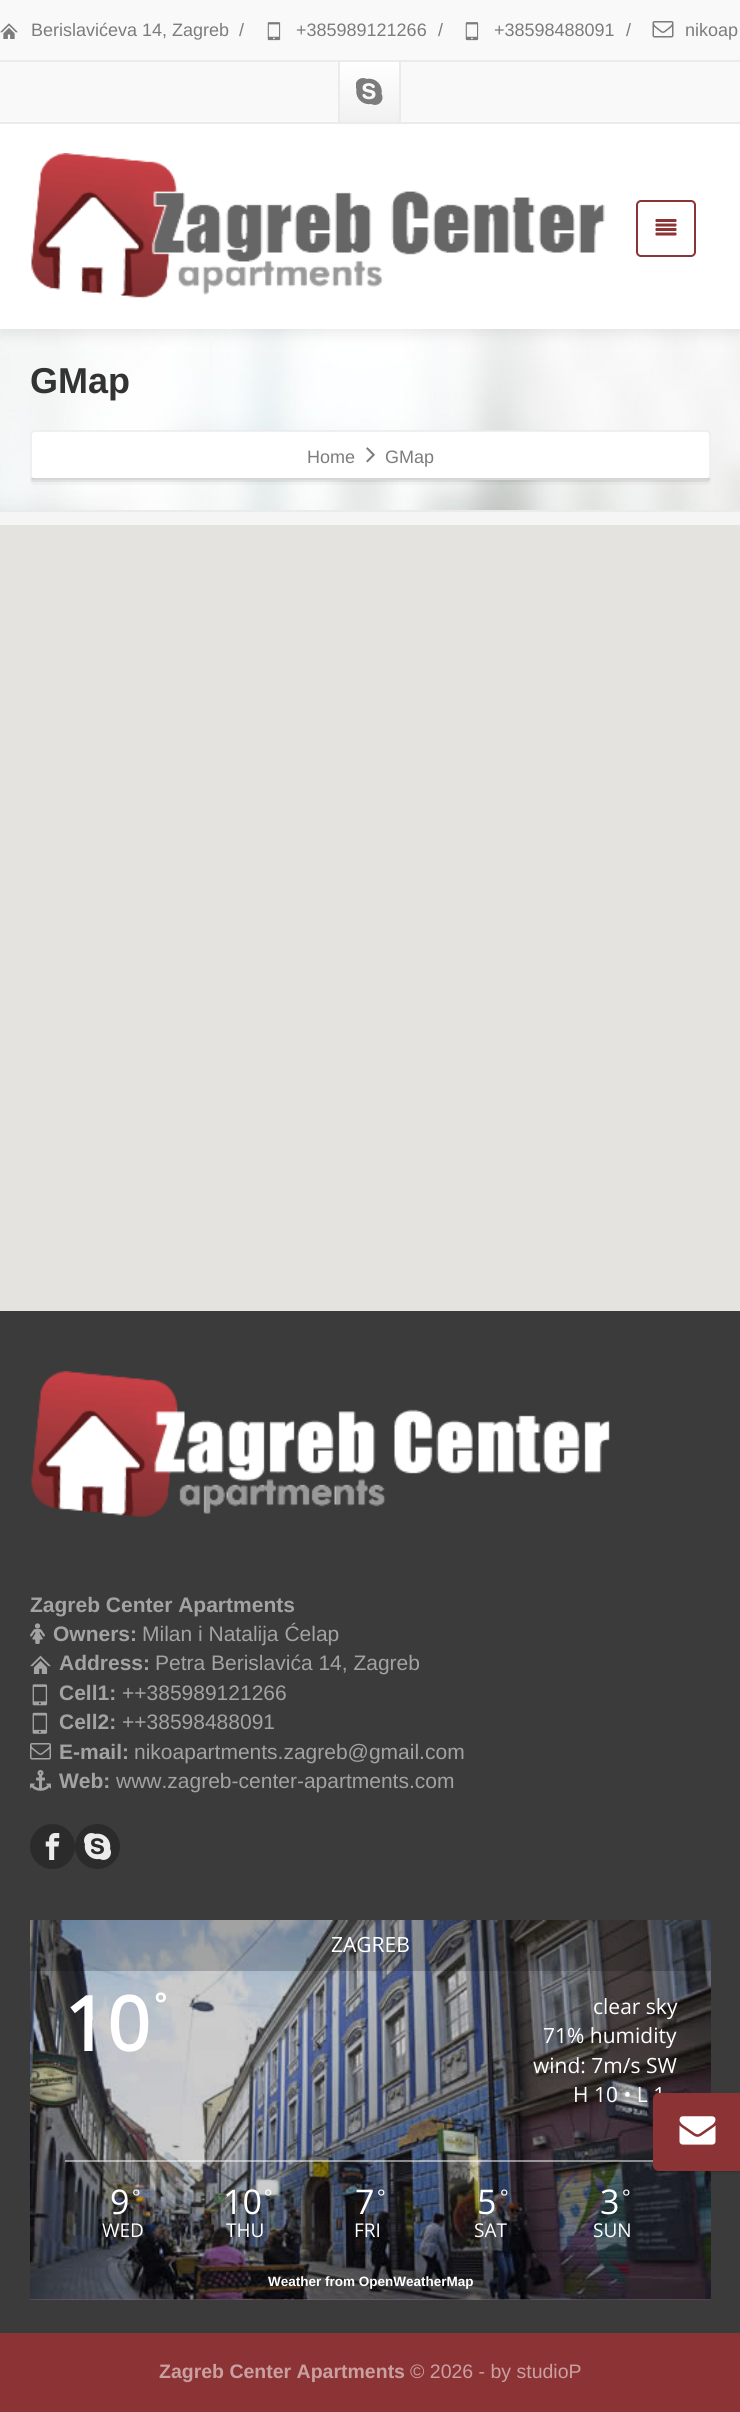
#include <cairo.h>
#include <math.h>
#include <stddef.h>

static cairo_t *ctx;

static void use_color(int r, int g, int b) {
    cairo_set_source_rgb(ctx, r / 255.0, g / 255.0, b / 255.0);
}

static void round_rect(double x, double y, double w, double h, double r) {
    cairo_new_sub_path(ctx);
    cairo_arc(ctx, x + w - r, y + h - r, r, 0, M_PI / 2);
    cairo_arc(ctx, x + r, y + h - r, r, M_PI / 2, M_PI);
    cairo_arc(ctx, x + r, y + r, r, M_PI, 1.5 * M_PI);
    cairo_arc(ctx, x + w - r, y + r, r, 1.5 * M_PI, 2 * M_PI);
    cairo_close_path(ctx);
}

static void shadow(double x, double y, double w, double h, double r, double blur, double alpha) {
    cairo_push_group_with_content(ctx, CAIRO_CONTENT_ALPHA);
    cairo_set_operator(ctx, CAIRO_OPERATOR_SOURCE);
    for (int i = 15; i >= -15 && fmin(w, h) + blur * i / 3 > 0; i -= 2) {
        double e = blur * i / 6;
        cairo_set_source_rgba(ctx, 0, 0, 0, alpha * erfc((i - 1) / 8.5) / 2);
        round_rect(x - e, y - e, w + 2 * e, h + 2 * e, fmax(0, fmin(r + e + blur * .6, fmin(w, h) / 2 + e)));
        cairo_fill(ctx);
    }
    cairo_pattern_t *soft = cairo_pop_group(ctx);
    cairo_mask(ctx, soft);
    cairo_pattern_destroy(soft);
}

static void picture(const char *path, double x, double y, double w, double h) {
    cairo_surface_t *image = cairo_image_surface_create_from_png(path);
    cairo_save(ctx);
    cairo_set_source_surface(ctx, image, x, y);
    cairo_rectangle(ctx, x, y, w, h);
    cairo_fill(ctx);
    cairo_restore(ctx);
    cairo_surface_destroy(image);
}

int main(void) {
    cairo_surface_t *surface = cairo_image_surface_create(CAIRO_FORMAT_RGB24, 740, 2412);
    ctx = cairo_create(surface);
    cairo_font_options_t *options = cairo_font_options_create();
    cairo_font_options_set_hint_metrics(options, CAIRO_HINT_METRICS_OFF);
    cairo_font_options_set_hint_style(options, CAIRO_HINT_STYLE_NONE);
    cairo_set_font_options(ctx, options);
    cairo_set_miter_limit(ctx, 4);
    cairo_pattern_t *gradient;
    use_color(245, 245, 245);
    cairo_paint(ctx);
    picture("img7.png", 0, 329, 740, 181);
    use_color(0, 0, 0);
    shadow(0, 126, 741, 206, 0, 7.5, 0.1);
    use_color(249, 249, 249);
    cairo_rectangle(ctx, 0, 0, 740, 122);
    cairo_fill(ctx);
    use_color(235, 235, 235);
    cairo_rectangle(ctx, 0, 122, 740, 2);
    cairo_fill(ctx);
    cairo_rectangle(ctx, 0, 60, 740, 2);
    cairo_fill(ctx);
    picture("img1.png", 0, 23, 18, 16);
    cairo_select_font_face(ctx, "Liberation Sans", CAIRO_FONT_SLANT_NORMAL, CAIRO_FONT_WEIGHT_NORMAL);
    cairo_set_font_size(ctx, 18);
    use_color(124, 124, 124);
    cairo_move_to(ctx, 31, 36);
    cairo_show_text(ctx, "Berislavićeva 14, Zagreb");
    cairo_move_to(ctx, 239, 36);
    cairo_show_text(ctx, "/");
    picture("img2.png", 267, 22, 14, 19);
    cairo_move_to(ctx, 296, 36);
    cairo_show_text(ctx, "+385989121266");
    cairo_move_to(ctx, 438, 36);
    cairo_show_text(ctx, "/");
    picture("img2.png", 465, 22, 14, 19);
    cairo_move_to(ctx, 494, 36);
    cairo_show_text(ctx, "+38598488091");
    cairo_move_to(ctx, 626, 36);
    cairo_show_text(ctx, "/");
    picture("img3.png", 652, 21, 22, 17);
    cairo_move_to(ctx, 685, 36);
    cairo_show_text(ctx, "nikoap");
    gradient = cairo_pattern_create_linear(369, 62, 369, 122);
    cairo_pattern_add_color_stop_rgba(gradient, 0, 1, 1, 1, 1);
    cairo_pattern_add_color_stop_rgba(gradient, 1, 0.945, 0.945, 0.945, 1);
    cairo_set_source(ctx, gradient);
    cairo_pattern_destroy(gradient);
    cairo_rectangle(ctx, 340, 62, 59, 60);
    cairo_fill(ctx);
    use_color(235, 235, 235);
    cairo_rectangle(ctx, 399, 62, 2, 60);
    cairo_fill(ctx);
    cairo_rectangle(ctx, 338, 62, 2, 60);
    cairo_fill(ctx);
    picture("img4.png", 356, 78, 27, 27);
    use_color(255, 255, 255);
    cairo_rectangle(ctx, 0, 124, 740, 205);
    cairo_fill(ctx);
    picture("img5.png", 31, 153, 574, 146);
    round_rect(637, 201, 58, 55, 4);
    use_color(140, 51, 53);
    cairo_stroke(ctx);
    picture("img6.png", 655, 219, 22, 17);
    use_color(235, 235, 235);
    cairo_rectangle(ctx, 0, 510, 740, 2);
    cairo_fill(ctx);
    cairo_select_font_face(ctx, "Liberation Sans", CAIRO_FONT_SLANT_NORMAL, CAIRO_FONT_WEIGHT_BOLD);
    cairo_set_font_size(ctx, 36);
    use_color(51, 51, 51);
    cairo_move_to(ctx, 30, 393);
    cairo_show_text(ctx, "GMap");
    cairo_set_source_rgba(ctx, 0, 0, 0, 0.07);
    cairo_new_path(ctx);
    cairo_move_to(ctx, 30, 476);
    cairo_curve_to(ctx, 30, 479, 31, 482, 35, 482);
    cairo_line_to(ctx, 706, 482);
    cairo_curve_to(ctx, 710, 482, 711, 479, 711, 476);
    cairo_curve_to(ctx, 711, 478, 709, 480, 706, 480);
    cairo_line_to(ctx, 34, 480);
    cairo_curve_to(ctx, 32, 480, 30, 478, 30, 476);
    cairo_close_path(ctx);
    cairo_fill(ctx);
    cairo_set_source_rgba(ctx, 0, 0, 0, 0.03);
    cairo_new_path(ctx);
    cairo_move_to(ctx, 30, 476);
    cairo_line_to(ctx, 30, 480);
    cairo_curve_to(ctx, 30, 483, 32, 485, 35, 485);
    cairo_line_to(ctx, 706, 485);
    cairo_curve_to(ctx, 709, 485, 711, 483, 711, 480);
    cairo_line_to(ctx, 711, 476);
    cairo_curve_to(ctx, 711, 478, 709, 480, 706, 480);
    cairo_line_to(ctx, 34, 480);
    cairo_curve_to(ctx, 32, 480, 30, 478, 30, 476);
    cairo_close_path(ctx);
    cairo_fill(ctx);
    use_color(255, 255, 255);
    round_rect(30, 431, 681, 49, 5);
    cairo_fill(ctx);
    cairo_new_path(ctx);
    cairo_move_to(ctx, 709, 478);
    cairo_curve_to(ctx, 708.5, 479, 707.5, 479, 706.5, 479);
    cairo_line_to(ctx, 34.5, 479);
    cairo_curve_to(ctx, 33.5, 479, 32.5, 479, 32, 478);
    cairo_set_source_rgba(ctx, 0, 0, 0, 0.22);
    cairo_set_line_width(ctx, 1.5);
    cairo_stroke(ctx);
    cairo_new_path(ctx);
    cairo_move_to(ctx, 32, 478);
    cairo_curve_to(ctx, 31, 477.5, 31, 476.5, 31, 475.5);
    cairo_line_to(ctx, 31, 435);
    cairo_curve_to(ctx, 31, 434, 31, 433, 32, 432.5);
    cairo_curve_to(ctx, 32.5, 431.5, 33.5, 431, 34.5, 431);
    cairo_line_to(ctx, 706.5, 431);
    cairo_curve_to(ctx, 707.5, 431, 708.5, 431.5, 709, 432.5);
    cairo_curve_to(ctx, 710, 433, 710, 434, 710, 435);
    cairo_line_to(ctx, 710, 475.5);
    cairo_curve_to(ctx, 710, 476.5, 710, 477.5, 709, 478);
    use_color(235, 235, 235);
    cairo_stroke(ctx);
    cairo_select_font_face(ctx, "Liberation Sans", CAIRO_FONT_SLANT_NORMAL, CAIRO_FONT_WEIGHT_NORMAL);
    cairo_set_font_size(ctx, 18);
    use_color(124, 124, 124);
    cairo_move_to(ctx, 307, 463);
    cairo_show_text(ctx, "Home");
    picture("img8.png", 366, 447, 9, 16);
    cairo_move_to(ctx, 385, 463);
    cairo_show_text(ctx, "GMap");
    use_color(229, 227, 223);
    cairo_rectangle(ctx, 0, 525, 740, 786);
    cairo_fill(ctx);
    use_color(59, 59, 59);
    cairo_rectangle(ctx, 0, 1311, 740, 1022);
    cairo_fill(ctx);
    picture("img9.png", 31, 1371, 579, 147);
    cairo_select_font_face(ctx, "Liberation Sans", CAIRO_FONT_SLANT_NORMAL, CAIRO_FONT_WEIGHT_BOLD);
    cairo_set_font_size(ctx, 21);
    use_color(163, 163, 163);
    cairo_move_to(ctx, 30, 1612);
    cairo_show_text(ctx, "Zagreb Center Apartments");
    picture("img10.png", 30, 1623, 15, 21);
    cairo_move_to(ctx, 53, 1641);
    cairo_show_text(ctx, "Owners:");
    cairo_select_font_face(ctx, "Liberation Sans", CAIRO_FONT_SLANT_NORMAL, CAIRO_FONT_WEIGHT_NORMAL);
    cairo_move_to(ctx, 142, 1641);
    cairo_show_text(ctx, "Milan i Natalija Ćelap");
    picture("img11.png", 30, 1655, 21, 19);
    cairo_select_font_face(ctx, "Liberation Sans", CAIRO_FONT_SLANT_NORMAL, CAIRO_FONT_WEIGHT_BOLD);
    cairo_move_to(ctx, 59, 1670);
    cairo_show_text(ctx, "Address:");
    cairo_select_font_face(ctx, "Liberation Sans", CAIRO_FONT_SLANT_NORMAL, CAIRO_FONT_WEIGHT_NORMAL);
    cairo_move_to(ctx, 155, 1670);
    cairo_show_text(ctx, "Petra Berislavića 14, Zagreb");
    picture("img12.png", 32, 1684, 16, 22);
    cairo_select_font_face(ctx, "Liberation Sans", CAIRO_FONT_SLANT_NORMAL, CAIRO_FONT_WEIGHT_BOLD);
    cairo_move_to(ctx, 59, 1700);
    cairo_show_text(ctx, "Cell1:");
    cairo_select_font_face(ctx, "Liberation Sans", CAIRO_FONT_SLANT_NORMAL, CAIRO_FONT_WEIGHT_NORMAL);
    cairo_move_to(ctx, 122, 1700);
    cairo_show_text(ctx, "++385989121266");
    picture("img13.png", 32, 1712, 16, 22);
    cairo_select_font_face(ctx, "Liberation Sans", CAIRO_FONT_SLANT_NORMAL, CAIRO_FONT_WEIGHT_BOLD);
    cairo_move_to(ctx, 59, 1729);
    cairo_show_text(ctx, "Cell2:");
    cairo_select_font_face(ctx, "Liberation Sans", CAIRO_FONT_SLANT_NORMAL, CAIRO_FONT_WEIGHT_NORMAL);
    cairo_move_to(ctx, 122, 1729);
    cairo_show_text(ctx, "++38598488091");
    picture("img14.png", 30, 1743, 21, 17);
    cairo_select_font_face(ctx, "Liberation Sans", CAIRO_FONT_SLANT_NORMAL, CAIRO_FONT_WEIGHT_BOLD);
    cairo_move_to(ctx, 59, 1759);
    cairo_show_text(ctx, "E-mail:");
    cairo_select_font_face(ctx, "Liberation Sans", CAIRO_FONT_SLANT_NORMAL, CAIRO_FONT_WEIGHT_NORMAL);
    cairo_move_to(ctx, 134, 1759);
    cairo_show_text(ctx, "nikoapartments.zagreb@gmail.com");
    picture("img15.png", 30, 1770, 21, 21);
    cairo_select_font_face(ctx, "Liberation Sans", CAIRO_FONT_SLANT_NORMAL, CAIRO_FONT_WEIGHT_BOLD);
    cairo_move_to(ctx, 59, 1788);
    cairo_show_text(ctx, "Web:");
    cairo_select_font_face(ctx, "Liberation Sans", CAIRO_FONT_SLANT_NORMAL, CAIRO_FONT_WEIGHT_NORMAL);
    cairo_move_to(ctx, 116, 1788);
    cairo_show_text(ctx, "www.zagreb-center-apartments.com");
    use_color(43, 43, 43);
    cairo_new_path(ctx);
    cairo_arc(ctx, 52.5, 1846.5, 22.5, 0, 2 * M_PI);
    cairo_fill(ctx);
    picture("img16.png", 45, 1833, 15, 27);
    cairo_arc(ctx, 97.5, 1846.5, 22.5, 0, 2 * M_PI);
    cairo_fill(ctx);
    picture("img17.png", 84, 1833, 27, 27);
    use_color(161, 120, 163);
    cairo_rectangle(ctx, 30, 2299, 681, 1);
    cairo_fill(ctx);
    picture("img18.png", 30, 1920, 681, 380);
    cairo_set_source_rgba(ctx, 0, 0, 0, 0.2);
    cairo_rectangle(ctx, 30, 1920, 681, 380);
    cairo_fill(ctx);
    cairo_rectangle(ctx, 30, 1920, 681, 51);
    cairo_fill(ctx);
    cairo_select_font_face(ctx, "Open Sans", CAIRO_FONT_SLANT_NORMAL, CAIRO_FONT_WEIGHT_NORMAL);
    use_color(255, 255, 255);
    cairo_move_to(ctx, 331, 1952);
    cairo_show_text(ctx, "ZAGREB");
    cairo_select_font_face(ctx, "Open Sans", CAIRO_FONT_SLANT_NORMAL, CAIRO_FONT_WEIGHT_BOLD);
    cairo_set_font_size(ctx, 75);
    cairo_move_to(ctx, 64, 2051);
    cairo_show_text(ctx, "10");
    cairo_set_font_size(ctx, 30);
    cairo_move_to(ctx, 154, 2015);
    cairo_show_text(ctx, "°");
    cairo_select_font_face(ctx, "Open Sans", CAIRO_FONT_SLANT_NORMAL, CAIRO_FONT_WEIGHT_NORMAL);
    cairo_set_font_size(ctx, 21);
    cairo_move_to(ctx, 593, 2014);
    cairo_show_text(ctx, "clear sky");
    cairo_move_to(ctx, 543, 2043);
    cairo_show_text(ctx, "71% humidity");
    cairo_move_to(ctx, 533, 2073);
    cairo_show_text(ctx, "wind: 7m/s SW");
    cairo_move_to(ctx, 573, 2102);
    cairo_show_text(ctx, "H 10 • L 1");
    cairo_set_source_rgba(ctx, 1, 1, 1, 0.5);
    cairo_rectangle(ctx, 65, 2160, 588, 2);
    cairo_fill(ctx);
    cairo_set_font_size(ctx, 34);
    use_color(255, 255, 255);
    cairo_move_to(ctx, 110, 2214);
    cairo_show_text(ctx, "9");
    cairo_set_font_size(ctx, 20);
    cairo_move_to(ctx, 132, 2204);
    cairo_show_text(ctx, "°");
    cairo_set_font_size(ctx, 19);
    cairo_move_to(ctx, 102, 2237);
    cairo_show_text(ctx, "WED");
    cairo_set_font_size(ctx, 34);
    cairo_move_to(ctx, 223, 2214);
    cairo_show_text(ctx, "10");
    cairo_set_font_size(ctx, 20);
    cairo_move_to(ctx, 264, 2204);
    cairo_show_text(ctx, "°");
    cairo_set_font_size(ctx, 19);
    cairo_move_to(ctx, 226, 2237);
    cairo_show_text(ctx, "THU");
    cairo_set_font_size(ctx, 34);
    cairo_move_to(ctx, 355, 2214);
    cairo_show_text(ctx, "7");
    cairo_set_font_size(ctx, 20);
    cairo_move_to(ctx, 377, 2204);
    cairo_show_text(ctx, "°");
    cairo_set_font_size(ctx, 19);
    cairo_move_to(ctx, 354, 2237);
    cairo_show_text(ctx, "FRI");
    cairo_set_font_size(ctx, 34);
    cairo_move_to(ctx, 477, 2214);
    cairo_show_text(ctx, "5");
    cairo_set_font_size(ctx, 20);
    cairo_move_to(ctx, 500, 2204);
    cairo_show_text(ctx, "°");
    cairo_set_font_size(ctx, 19);
    cairo_move_to(ctx, 474, 2237);
    cairo_show_text(ctx, "SAT");
    cairo_set_font_size(ctx, 34);
    cairo_move_to(ctx, 600, 2214);
    cairo_show_text(ctx, "3");
    cairo_set_font_size(ctx, 20);
    cairo_move_to(ctx, 622, 2204);
    cairo_show_text(ctx, "°");
    cairo_set_font_size(ctx, 19);
    cairo_move_to(ctx, 593, 2237);
    cairo_show_text(ctx, "SUN");
    cairo_select_font_face(ctx, "Liberation Sans", CAIRO_FONT_SLANT_NORMAL, CAIRO_FONT_WEIGHT_BOLD);
    cairo_set_font_size(ctx, 13.5);
    cairo_move_to(ctx, 268, 2286);
    cairo_show_text(ctx, "Weather from OpenWeatherMap");
    use_color(140, 51, 53);
    cairo_rectangle(ctx, 0, 2333, 740, 79);
    cairo_fill(ctx);
    cairo_set_font_size(ctx, 19.5);
    use_color(201, 159, 160);
    cairo_move_to(ctx, 159, 2378);
    cairo_show_text(ctx, "Zagreb Center Apartments");
    cairo_select_font_face(ctx, "Liberation Sans", CAIRO_FONT_SLANT_NORMAL, CAIRO_FONT_WEIGHT_NORMAL);
    cairo_move_to(ctx, 410, 2378);
    cairo_show_text(ctx, "© 2026 - by studioP");
    cairo_set_source_rgba(ctx, 0, 0, 0, 0.08);
    cairo_new_path(ctx);
    cairo_move_to(ctx, 653, 2167);
    cairo_curve_to(ctx, 654, 2170, 656, 2172, 659, 2172);
    cairo_line_to(ctx, 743, 2172);
    cairo_curve_to(ctx, 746, 2172, 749, 2169, 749, 2166);
    cairo_line_to(ctx, 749, 2100);
    cairo_line_to(ctx, 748, 2097);
    cairo_line_to(ctx, 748, 2164);
    cairo_line_to(ctx, 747, 2168);
    cairo_curve_to(ctx, 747, 2169, 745, 2170, 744, 2170);
    cairo_line_to(ctx, 657, 2170);
    cairo_curve_to(ctx, 655, 2170, 654, 2169, 653, 2167);
    cairo_close_path(ctx);
    cairo_fill(ctx);
    use_color(0, 0, 0);
    shadow(653, 2096, 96, 78, 6, 1.5, 0.05);
    use_color(140, 51, 53);
    round_rect(653, 2093, 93, 78, 6);
    cairo_fill(ctx);
    picture("img19.png", 679, 2116, 37, 29);
    cairo_surface_write_to_png(surface, "result.png");
    cairo_font_options_destroy(options);
    cairo_destroy(ctx);
    cairo_surface_destroy(surface);
    return 0;
}
